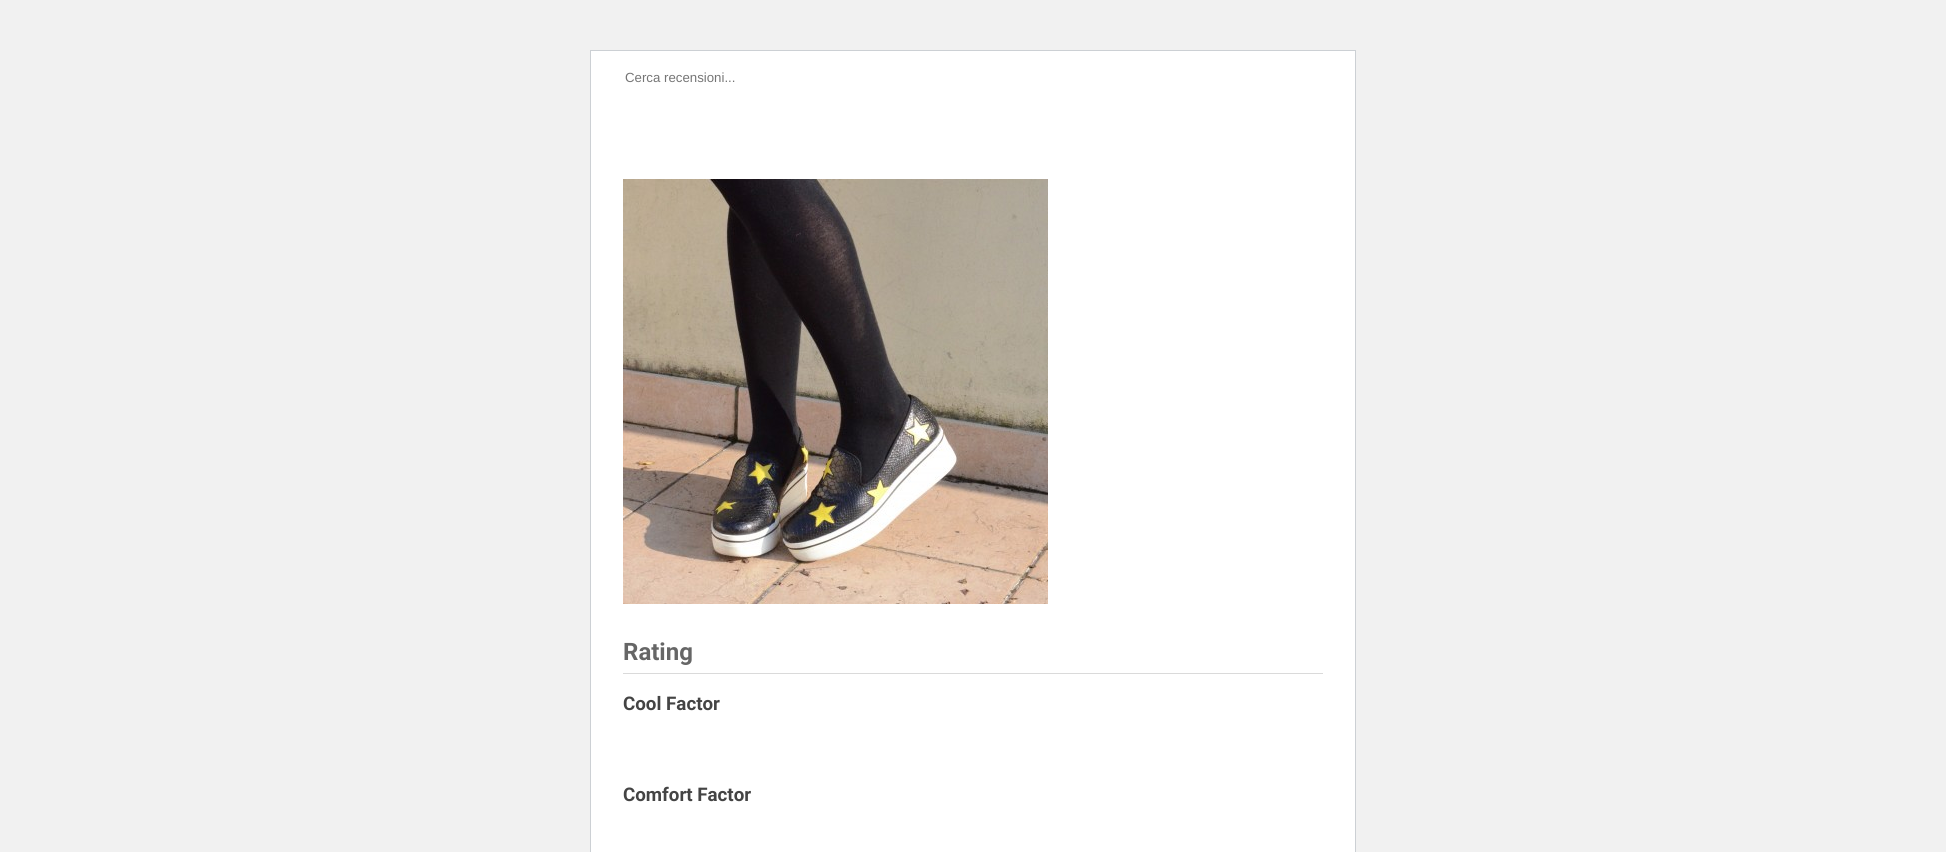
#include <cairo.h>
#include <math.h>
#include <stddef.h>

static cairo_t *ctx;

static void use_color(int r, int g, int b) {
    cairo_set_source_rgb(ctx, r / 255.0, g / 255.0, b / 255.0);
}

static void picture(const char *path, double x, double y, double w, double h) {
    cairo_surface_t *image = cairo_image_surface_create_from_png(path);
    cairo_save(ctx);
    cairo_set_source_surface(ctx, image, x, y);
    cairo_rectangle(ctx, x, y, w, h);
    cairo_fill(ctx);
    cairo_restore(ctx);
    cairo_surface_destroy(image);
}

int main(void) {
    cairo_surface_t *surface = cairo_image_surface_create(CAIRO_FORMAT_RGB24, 1946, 852);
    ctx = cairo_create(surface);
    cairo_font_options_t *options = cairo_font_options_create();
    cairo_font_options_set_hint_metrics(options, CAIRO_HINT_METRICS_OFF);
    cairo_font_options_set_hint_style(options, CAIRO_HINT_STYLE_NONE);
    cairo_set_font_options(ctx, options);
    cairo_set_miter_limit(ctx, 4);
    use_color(241, 241, 241);
    cairo_paint(ctx);
    use_color(255, 255, 255);
    cairo_rectangle(ctx, 590.5, 50.5, 765, 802);
    cairo_fill_preserve(ctx);
    use_color(204, 208, 212);
    cairo_set_line_width(ctx, 1);
    cairo_stroke(ctx);
    cairo_select_font_face(ctx, "Liberation Sans", CAIRO_FONT_SLANT_NORMAL, CAIRO_FONT_WEIGHT_NORMAL);
    cairo_set_font_size(ctx, 13.25);
    use_color(117, 117, 117);
    cairo_move_to(ctx, 625, 82);
    cairo_show_text(ctx, "Cerca recensioni...");
    picture("img1.png", 623, 179, 425, 425);
    use_color(218, 218, 218);
    cairo_rectangle(ctx, 623, 673, 700, 1);
    cairo_fill(ctx);
    cairo_select_font_face(ctx, "Roboto", CAIRO_FONT_SLANT_NORMAL, CAIRO_FONT_WEIGHT_BOLD);
    cairo_set_font_size(ctx, 24);
    use_color(102, 102, 102);
    cairo_move_to(ctx, 623, 660);
    cairo_show_text(ctx, "Rating");
    cairo_set_font_size(ctx, 18.75);
    use_color(68, 68, 68);
    cairo_move_to(ctx, 623, 710);
    cairo_show_text(ctx, "Cool Factor");
    cairo_move_to(ctx, 623, 801);
    cairo_show_text(ctx, "Comfort Factor");
    cairo_surface_write_to_png(surface, "result.png");
    cairo_font_options_destroy(options);
    cairo_destroy(ctx);
    cairo_surface_destroy(surface);
    return 0;
}
